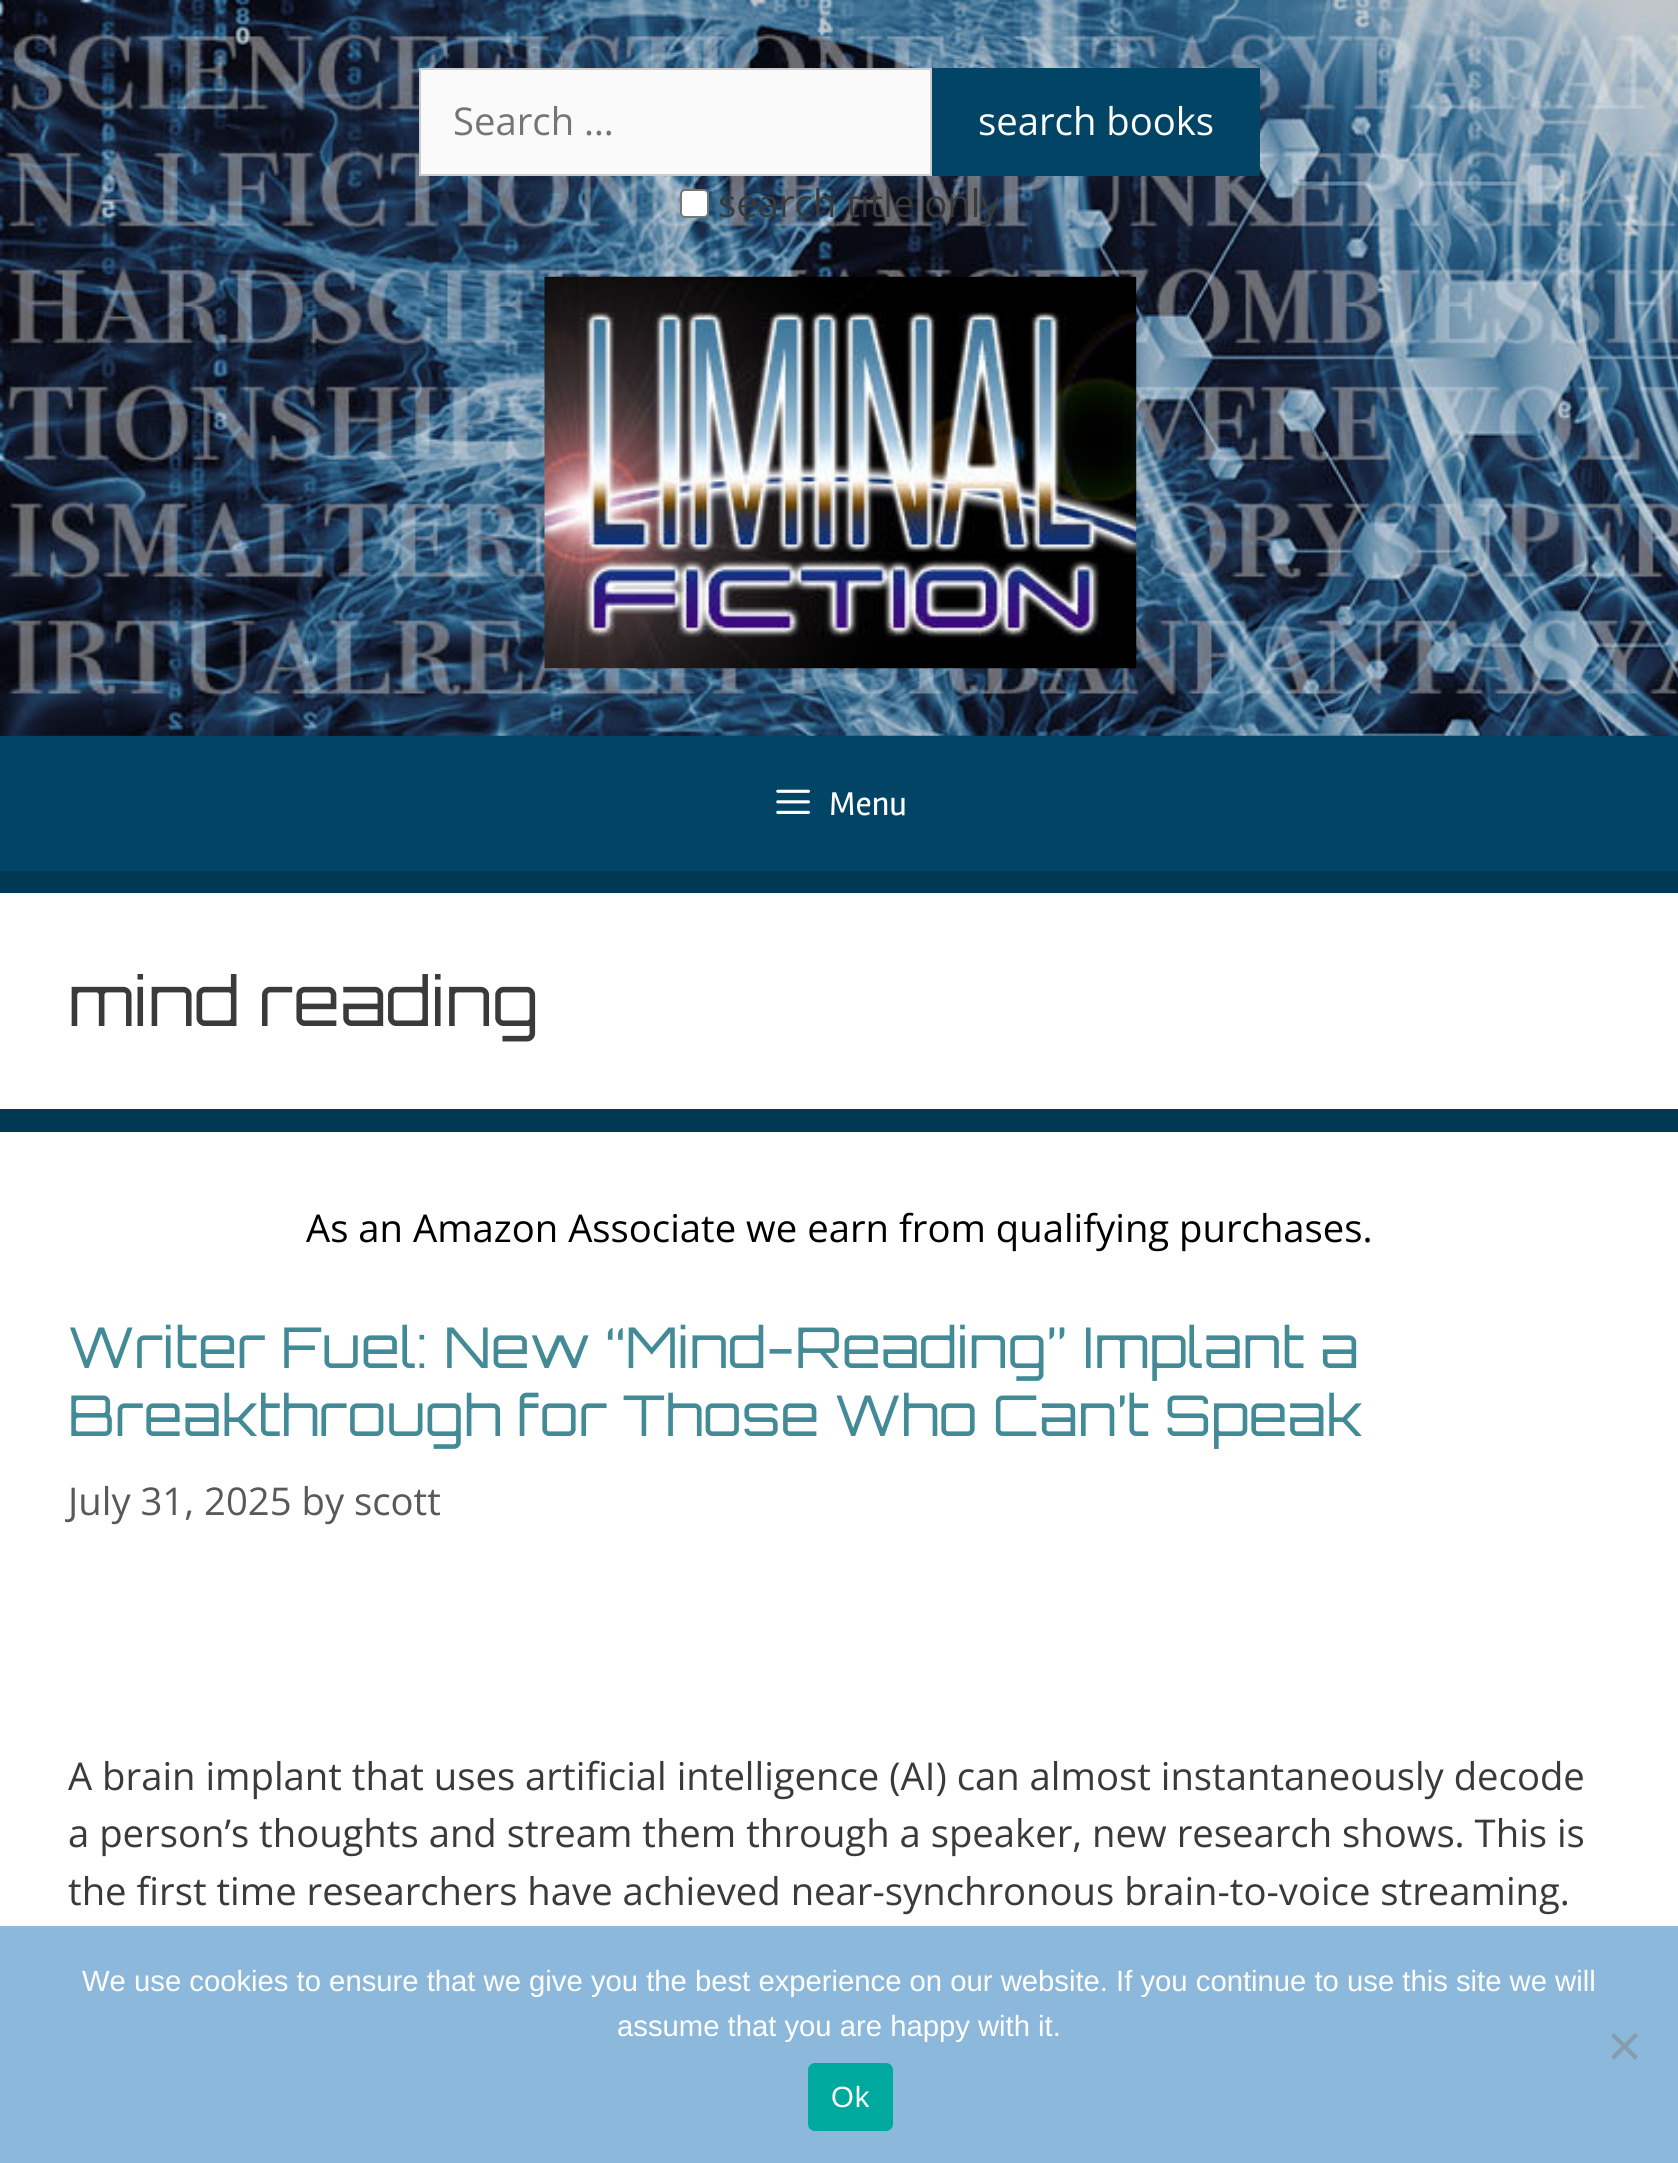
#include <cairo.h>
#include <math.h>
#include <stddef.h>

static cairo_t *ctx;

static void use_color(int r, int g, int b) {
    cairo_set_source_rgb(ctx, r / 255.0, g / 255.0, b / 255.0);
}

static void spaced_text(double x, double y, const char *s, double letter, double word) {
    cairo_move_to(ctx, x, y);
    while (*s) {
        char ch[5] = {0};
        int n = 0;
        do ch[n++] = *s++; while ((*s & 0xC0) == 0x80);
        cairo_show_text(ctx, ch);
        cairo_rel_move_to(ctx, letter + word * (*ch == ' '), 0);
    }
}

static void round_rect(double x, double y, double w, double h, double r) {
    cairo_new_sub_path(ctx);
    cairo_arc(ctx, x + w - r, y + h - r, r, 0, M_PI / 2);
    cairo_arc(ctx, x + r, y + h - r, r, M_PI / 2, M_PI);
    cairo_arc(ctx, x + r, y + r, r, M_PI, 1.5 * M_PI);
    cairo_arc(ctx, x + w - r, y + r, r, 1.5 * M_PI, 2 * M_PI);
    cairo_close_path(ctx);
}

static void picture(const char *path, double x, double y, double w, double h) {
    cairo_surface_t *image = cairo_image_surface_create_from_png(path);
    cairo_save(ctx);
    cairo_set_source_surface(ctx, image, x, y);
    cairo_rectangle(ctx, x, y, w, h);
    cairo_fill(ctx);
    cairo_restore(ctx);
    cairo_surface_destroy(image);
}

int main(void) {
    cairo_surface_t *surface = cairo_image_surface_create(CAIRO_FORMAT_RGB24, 1678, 2163);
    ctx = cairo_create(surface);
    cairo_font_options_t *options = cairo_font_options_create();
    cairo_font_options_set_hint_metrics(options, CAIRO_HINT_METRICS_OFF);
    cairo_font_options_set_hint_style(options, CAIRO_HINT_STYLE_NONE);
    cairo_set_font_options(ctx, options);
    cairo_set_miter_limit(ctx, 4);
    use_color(0, 57, 81);
    cairo_paint(ctx);
    picture("img1.png", 0, 0, 1678, 736);
    use_color(250, 250, 250);
    cairo_rectangle(ctx, 420, 69, 511, 106);
    cairo_fill_preserve(ctx);
    use_color(204, 204, 204);
    cairo_stroke(ctx);
    cairo_select_font_face(ctx, "Open Sans", CAIRO_FONT_SLANT_NORMAL, CAIRO_FONT_WEIGHT_NORMAL);
    cairo_set_font_size(ctx, 38.25);
    use_color(117, 117, 117);
    cairo_move_to(ctx, 453, 135);
    cairo_show_text(ctx, "Search …");
    use_color(1, 68, 102);
    cairo_rectangle(ctx, 932, 68, 328, 108);
    cairo_fill(ctx);
    use_color(255, 255, 255);
    cairo_move_to(ctx, 978, 135);
    cairo_show_text(ctx, "search books");
    round_rect(681, 190, 27, 27, 4);
    cairo_fill_preserve(ctx);
    use_color(118, 118, 118);
    cairo_stroke(ctx);
    use_color(58, 58, 58);
    cairo_move_to(ctx, 718, 217);
    cairo_show_text(ctx, "search title only");
    picture("img2.png", 544, 276, 593, 393);
    use_color(1, 68, 102);
    cairo_rectangle(ctx, 0, 736, 1678, 135);
    cairo_fill(ctx);
    picture("img3.png", 776, 789, 34, 25);
    cairo_select_font_face(ctx, "Rambla", CAIRO_FONT_SLANT_NORMAL, CAIRO_FONT_WEIGHT_NORMAL);
    cairo_set_font_size(ctx, 34);
    use_color(255, 255, 255);
    cairo_move_to(ctx, 829, 815);
    cairo_show_text(ctx, "Menu");
    cairo_rectangle(ctx, 0, 893, 1678, 216);
    cairo_fill(ctx);
    cairo_select_font_face(ctx, "Orbitron", CAIRO_FONT_SLANT_NORMAL, CAIRO_FONT_WEIGHT_NORMAL);
    cairo_set_font_size(ctx, 67.5);
    use_color(58, 58, 58);
    cairo_move_to(ctx, 68, 1026);
    cairo_show_text(ctx, "mind reading");
    use_color(255, 255, 255);
    cairo_rectangle(ctx, 0, 1132, 1678, 794);
    cairo_fill(ctx);
    cairo_select_font_face(ctx, "Open Sans", CAIRO_FONT_SLANT_NORMAL, CAIRO_FONT_WEIGHT_NORMAL);
    cairo_set_font_size(ctx, 38.25);
    use_color(0, 0, 0);
    cairo_move_to(ctx, 306, 1242);
    cairo_show_text(ctx, "As an Amazon Associate we earn from qualifying purchases.");
    cairo_select_font_face(ctx, "Orbitron", CAIRO_FONT_SLANT_NORMAL, CAIRO_FONT_WEIGHT_NORMAL);
    cairo_set_font_size(ctx, 56.25);
    use_color(66, 139, 150);
    cairo_move_to(ctx, 68, 1368);
    cairo_show_text(ctx, "Writer Fuel: New “Mind-Reading” Implant a");
    cairo_move_to(ctx, 68, 1436);
    cairo_show_text(ctx, "Breakthrough for Those Who Can’t Speak");
    cairo_select_font_face(ctx, "Open Sans", CAIRO_FONT_SLANT_NORMAL, CAIRO_FONT_WEIGHT_NORMAL);
    cairo_set_font_size(ctx, 38.25);
    use_color(89, 89, 89);
    cairo_move_to(ctx, 68, 1515);
    cairo_show_text(ctx, "July 31, 2025 by scott");
    use_color(58, 58, 58);
    cairo_move_to(ctx, 68, 1790);
    cairo_show_text(ctx, "A brain implant that uses artificial intelligence (AI) can almost instantaneously decode");
    cairo_move_to(ctx, 68, 1847);
    cairo_show_text(ctx, "a person’s thoughts and stream them through a speaker, new research shows. This is");
    cairo_move_to(ctx, 68, 1905);
    cairo_show_text(ctx, "the first time researchers have achieved near-synchronous brain-to-voice streaming.");
    use_color(140, 185, 219);
    cairo_rectangle(ctx, 0, 1926, 1678, 237);
    cairo_fill(ctx);
    cairo_select_font_face(ctx, "Liberation Sans", CAIRO_FONT_SLANT_NORMAL, CAIRO_FONT_WEIGHT_NORMAL);
    cairo_set_font_size(ctx, 29.25);
    use_color(255, 255, 255);
    cairo_move_to(ctx, 82, 1991);
    cairo_show_text(ctx, "We use cookies to ensure that we give you the best experience on our website. If you continue to use this site we will");
    cairo_move_to(ctx, 617, 2036);
    cairo_show_text(ctx, "assume that you are happy with it.");
    use_color(134, 157, 174);
    cairo_new_path(ctx);
    cairo_move_to(ctx, 1635, 2033);
    cairo_line_to(ctx, 1638, 2036);
    cairo_line_to(ctx, 1614, 2060);
    cairo_line_to(ctx, 1611, 2056.5);
    cairo_close_path(ctx);
    cairo_fill(ctx);
    cairo_new_path(ctx);
    cairo_move_to(ctx, 1611, 2036);
    cairo_line_to(ctx, 1614, 2033);
    cairo_line_to(ctx, 1638, 2056.5);
    cairo_line_to(ctx, 1635, 2060);
    cairo_close_path(ctx);
    cairo_fill(ctx);
    use_color(0, 169, 157);
    round_rect(808, 2063, 85, 68, 7);
    cairo_fill(ctx);
    use_color(255, 255, 255);
    spaced_text(831, 2107, "Ok", 1, 0);
    cairo_surface_write_to_png(surface, "result.png");
    cairo_font_options_destroy(options);
    cairo_destroy(ctx);
    cairo_surface_destroy(surface);
    return 0;
}
